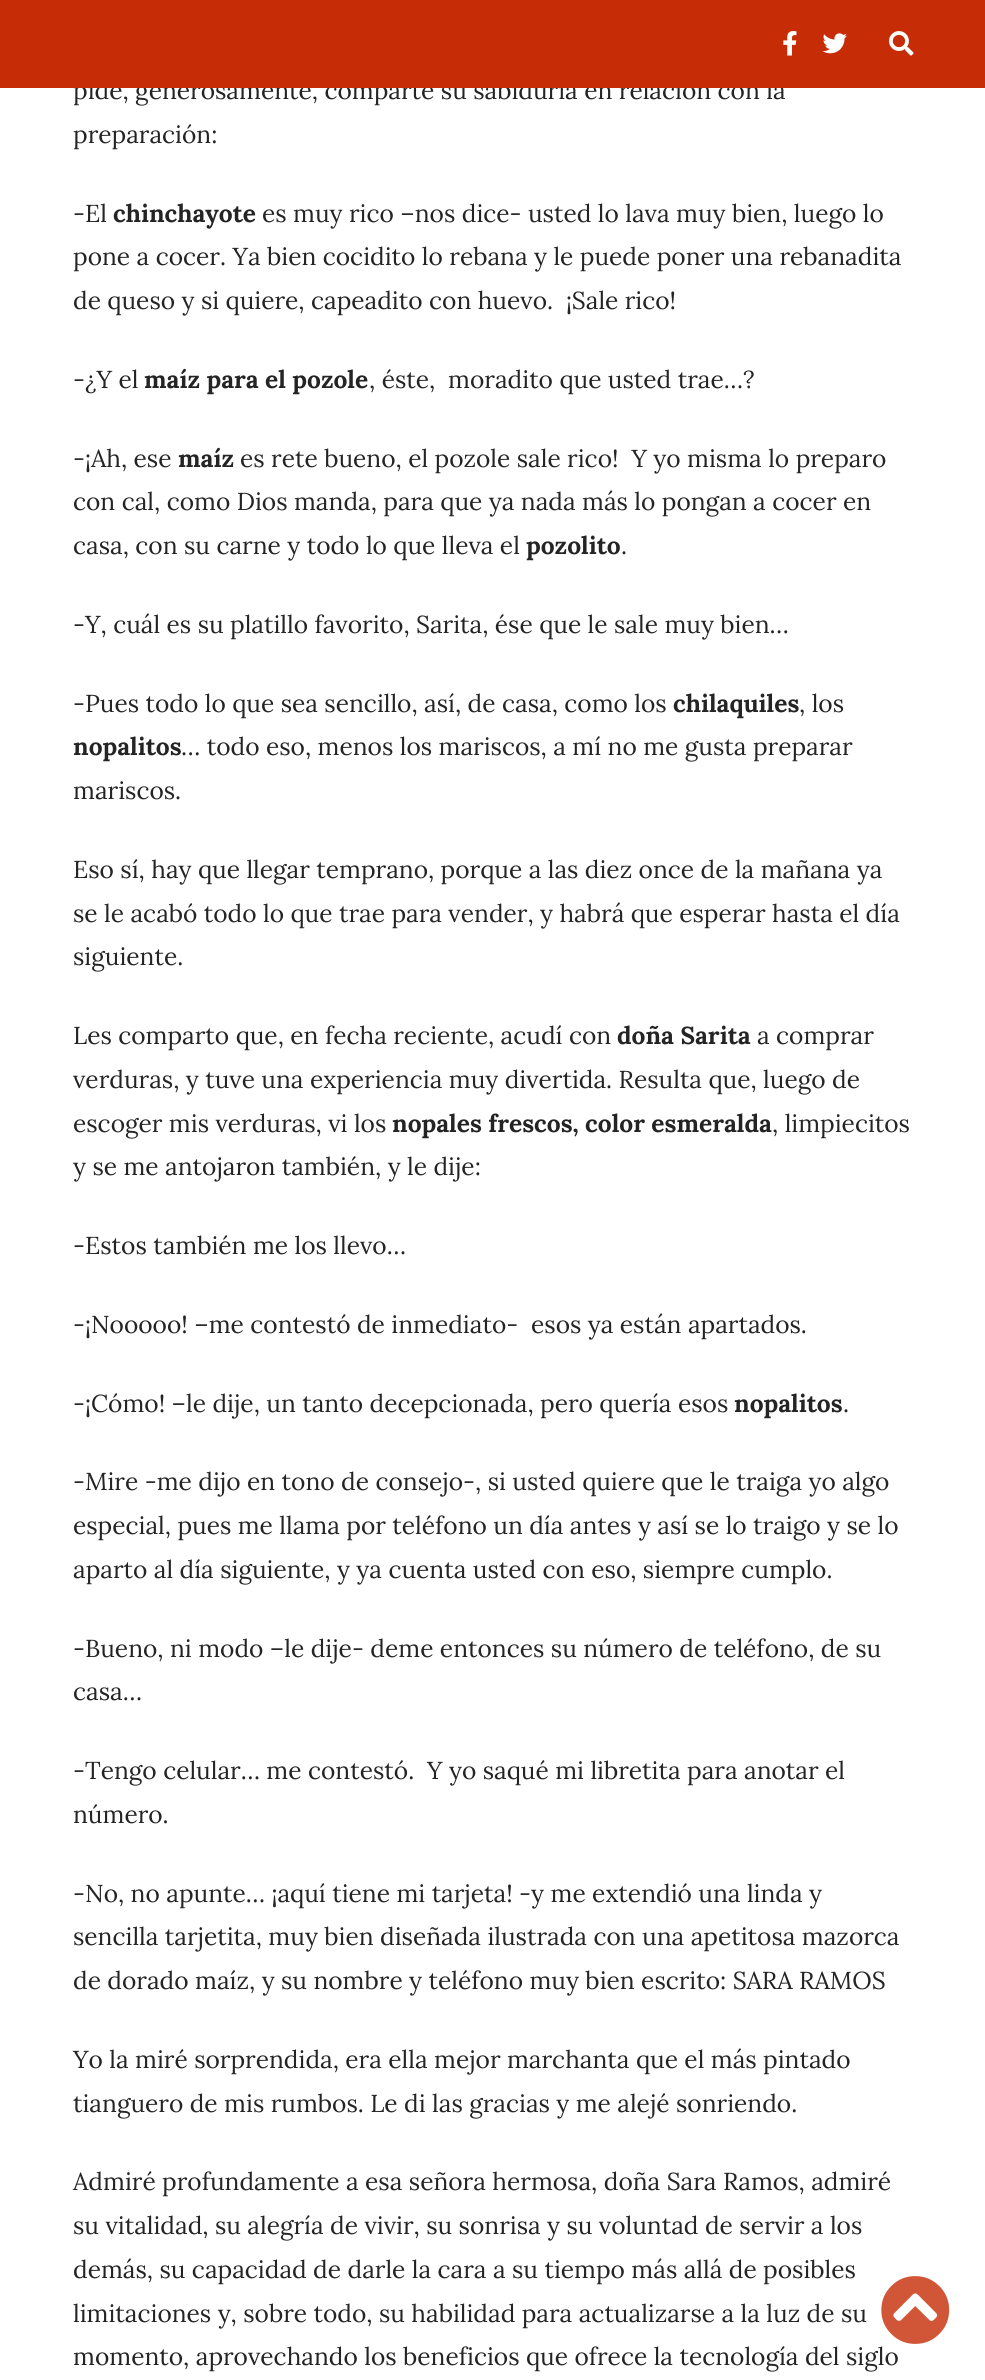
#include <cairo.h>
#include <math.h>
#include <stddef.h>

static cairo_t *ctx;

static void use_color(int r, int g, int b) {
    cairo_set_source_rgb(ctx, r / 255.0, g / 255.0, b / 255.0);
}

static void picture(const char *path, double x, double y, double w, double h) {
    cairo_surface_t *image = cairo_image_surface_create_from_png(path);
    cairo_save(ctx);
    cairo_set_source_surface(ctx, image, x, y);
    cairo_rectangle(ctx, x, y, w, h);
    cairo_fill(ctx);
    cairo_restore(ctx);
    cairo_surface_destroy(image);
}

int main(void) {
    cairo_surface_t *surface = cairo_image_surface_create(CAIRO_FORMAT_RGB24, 985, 2380);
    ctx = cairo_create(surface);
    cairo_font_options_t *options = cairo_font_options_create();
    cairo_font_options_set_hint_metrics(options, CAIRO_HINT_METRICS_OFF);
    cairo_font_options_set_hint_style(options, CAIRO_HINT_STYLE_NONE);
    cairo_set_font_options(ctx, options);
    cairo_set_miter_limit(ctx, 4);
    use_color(255, 255, 255);
    cairo_paint(ctx);
    cairo_select_font_face(ctx, "Lora", CAIRO_FONT_SLANT_NORMAL, CAIRO_FONT_WEIGHT_NORMAL);
    cairo_set_font_size(ctx, 24.5);
    use_color(36, 36, 36);
    cairo_move_to(ctx, 73, 99);
    cairo_show_text(ctx, "pide, generosamente, comparte su sabiduría en relación con la");
    use_color(198, 44, 5);
    cairo_rectangle(ctx, 0, 0, 985, 88);
    cairo_fill(ctx);
    picture("img1.png", 783, 31, 14, 25);
    picture("img2.png", 822, 33, 25, 21);
    picture("img3.png", 889, 31, 25, 25);
    use_color(36, 36, 36);
    cairo_move_to(ctx, 73, 143);
    cairo_show_text(ctx, "preparación:");
    cairo_move_to(ctx, 73, 222);
    cairo_show_text(ctx, "-El");
    cairo_select_font_face(ctx, "Lora", CAIRO_FONT_SLANT_NORMAL, CAIRO_FONT_WEIGHT_BOLD);
    cairo_move_to(ctx, 113, 222);
    cairo_show_text(ctx, "chinchayote");
    cairo_select_font_face(ctx, "Lora", CAIRO_FONT_SLANT_NORMAL, CAIRO_FONT_WEIGHT_NORMAL);
    cairo_move_to(ctx, 262, 222);
    cairo_show_text(ctx, "es muy rico –nos dice- usted lo lava muy bien, luego lo");
    cairo_move_to(ctx, 73, 265);
    cairo_show_text(ctx, "pone a cocer. Ya bien cocidito lo rebana y le puede poner una rebanadita");
    cairo_move_to(ctx, 73, 309);
    cairo_show_text(ctx, "de queso y si quiere, capeadito con huevo.  ¡Sale rico!");
    cairo_move_to(ctx, 73, 388);
    cairo_show_text(ctx, "-¿Y el");
    cairo_select_font_face(ctx, "Lora", CAIRO_FONT_SLANT_NORMAL, CAIRO_FONT_WEIGHT_BOLD);
    cairo_move_to(ctx, 144, 388);
    cairo_show_text(ctx, "maíz para el pozole");
    cairo_select_font_face(ctx, "Lora", CAIRO_FONT_SLANT_NORMAL, CAIRO_FONT_WEIGHT_NORMAL);
    cairo_move_to(ctx, 369, 388);
    cairo_show_text(ctx, ", éste,  moradito que usted trae…?");
    cairo_move_to(ctx, 73, 467);
    cairo_show_text(ctx, "-¡Ah, ese");
    cairo_select_font_face(ctx, "Lora", CAIRO_FONT_SLANT_NORMAL, CAIRO_FONT_WEIGHT_BOLD);
    cairo_move_to(ctx, 178, 467);
    cairo_show_text(ctx, "maíz");
    cairo_select_font_face(ctx, "Lora", CAIRO_FONT_SLANT_NORMAL, CAIRO_FONT_WEIGHT_NORMAL);
    cairo_move_to(ctx, 240, 467);
    cairo_show_text(ctx, "es rete bueno, el pozole sale rico!  Y yo misma lo preparo");
    cairo_move_to(ctx, 73, 510);
    cairo_show_text(ctx, "con cal, como Dios manda, para que ya nada más lo pongan a cocer en");
    cairo_move_to(ctx, 73, 554);
    cairo_show_text(ctx, "casa, con su carne y todo lo que lleva el");
    cairo_select_font_face(ctx, "Lora", CAIRO_FONT_SLANT_NORMAL, CAIRO_FONT_WEIGHT_BOLD);
    cairo_move_to(ctx, 526, 554);
    cairo_show_text(ctx, "pozolito");
    cairo_select_font_face(ctx, "Lora", CAIRO_FONT_SLANT_NORMAL, CAIRO_FONT_WEIGHT_NORMAL);
    cairo_move_to(ctx, 621, 554);
    cairo_show_text(ctx, ".");
    cairo_move_to(ctx, 73, 633);
    cairo_show_text(ctx, "-Y, cuál es su platillo favorito, Sarita, ése que le sale muy bien…");
    cairo_move_to(ctx, 73, 712);
    cairo_show_text(ctx, "-Pues todo lo que sea sencillo, así, de casa, como los");
    cairo_select_font_face(ctx, "Lora", CAIRO_FONT_SLANT_NORMAL, CAIRO_FONT_WEIGHT_BOLD);
    cairo_move_to(ctx, 673, 712);
    cairo_show_text(ctx, "chilaquiles");
    cairo_select_font_face(ctx, "Lora", CAIRO_FONT_SLANT_NORMAL, CAIRO_FONT_WEIGHT_NORMAL);
    cairo_move_to(ctx, 799, 712);
    cairo_show_text(ctx, ", los");
    cairo_select_font_face(ctx, "Lora", CAIRO_FONT_SLANT_NORMAL, CAIRO_FONT_WEIGHT_BOLD);
    cairo_move_to(ctx, 73, 755);
    cairo_show_text(ctx, "nopalitos");
    cairo_select_font_face(ctx, "Lora", CAIRO_FONT_SLANT_NORMAL, CAIRO_FONT_WEIGHT_NORMAL);
    cairo_move_to(ctx, 181, 755);
    cairo_show_text(ctx, "… todo eso, menos los mariscos, a mí no me gusta preparar");
    cairo_move_to(ctx, 73, 799);
    cairo_show_text(ctx, "mariscos.");
    cairo_move_to(ctx, 73, 878);
    cairo_show_text(ctx, "Eso sí, hay que llegar temprano, porque a las diez once de la mañana ya");
    cairo_move_to(ctx, 73, 922);
    cairo_show_text(ctx, "se le acabó todo lo que trae para vender, y habrá que esperar hasta el día");
    cairo_move_to(ctx, 73, 965);
    cairo_show_text(ctx, "siguiente.");
    cairo_move_to(ctx, 73, 1044);
    cairo_show_text(ctx, "Les comparto que, en fecha reciente, acudí con");
    cairo_select_font_face(ctx, "Lora", CAIRO_FONT_SLANT_NORMAL, CAIRO_FONT_WEIGHT_BOLD);
    cairo_move_to(ctx, 617, 1044);
    cairo_show_text(ctx, "doña Sarita");
    cairo_select_font_face(ctx, "Lora", CAIRO_FONT_SLANT_NORMAL, CAIRO_FONT_WEIGHT_NORMAL);
    cairo_move_to(ctx, 757, 1044);
    cairo_show_text(ctx, "a comprar");
    cairo_move_to(ctx, 73, 1088);
    cairo_show_text(ctx, "verduras, y tuve una experiencia muy divertida. Resulta que, luego de");
    cairo_move_to(ctx, 73, 1132);
    cairo_show_text(ctx, "escoger mis verduras, vi los");
    cairo_select_font_face(ctx, "Lora", CAIRO_FONT_SLANT_NORMAL, CAIRO_FONT_WEIGHT_BOLD);
    cairo_move_to(ctx, 392, 1132);
    cairo_show_text(ctx, "nopales frescos, color esmeralda");
    cairo_select_font_face(ctx, "Lora", CAIRO_FONT_SLANT_NORMAL, CAIRO_FONT_WEIGHT_NORMAL);
    cairo_move_to(ctx, 772, 1132);
    cairo_show_text(ctx, ", limpiecitos");
    cairo_move_to(ctx, 73, 1175);
    cairo_show_text(ctx, "y se me antojaron también, y le dije:");
    cairo_move_to(ctx, 73, 1254);
    cairo_show_text(ctx, "-Estos también me los llevo…");
    cairo_move_to(ctx, 73, 1333);
    cairo_show_text(ctx, "-¡Nooooo! –me contestó de inmediato-  esos ya están apartados.");
    cairo_move_to(ctx, 73, 1412);
    cairo_show_text(ctx, "-¡Cómo! –le dije, un tanto decepcionada, pero quería esos");
    cairo_select_font_face(ctx, "Lora", CAIRO_FONT_SLANT_NORMAL, CAIRO_FONT_WEIGHT_BOLD);
    cairo_move_to(ctx, 734, 1412);
    cairo_show_text(ctx, "nopalitos");
    cairo_select_font_face(ctx, "Lora", CAIRO_FONT_SLANT_NORMAL, CAIRO_FONT_WEIGHT_NORMAL);
    cairo_move_to(ctx, 843, 1412);
    cairo_show_text(ctx, ".");
    cairo_move_to(ctx, 73, 1490);
    cairo_show_text(ctx, "-Mire -me dijo en tono de consejo-, si usted quiere que le traiga yo algo");
    cairo_move_to(ctx, 73, 1534);
    cairo_show_text(ctx, "especial, pues me llama por teléfono un día antes y así se lo traigo y se lo");
    cairo_move_to(ctx, 73, 1578);
    cairo_show_text(ctx, "aparto al día siguiente, y ya cuenta usted con eso, siempre cumplo.");
    cairo_move_to(ctx, 73, 1657);
    cairo_show_text(ctx, "-Bueno, ni modo –le dije- deme entonces su número de teléfono, de su");
    cairo_move_to(ctx, 73, 1700);
    cairo_show_text(ctx, "casa…");
    cairo_move_to(ctx, 73, 1779);
    cairo_show_text(ctx, "-Tengo celular… me contestó.  Y yo saqué mi libretita para anotar el");
    cairo_move_to(ctx, 73, 1823);
    cairo_show_text(ctx, "número.");
    cairo_move_to(ctx, 73, 1902);
    cairo_show_text(ctx, "-No, no apunte… ¡aquí tiene mi tarjeta! -y me extendió una linda y");
    cairo_move_to(ctx, 73, 1945);
    cairo_show_text(ctx, "sencilla tarjetita, muy bien diseñada ilustrada con una apetitosa mazorca");
    cairo_move_to(ctx, 73, 1989);
    cairo_show_text(ctx, "de dorado maíz, y su nombre y teléfono muy bien escrito: SARA RAMOS");
    cairo_move_to(ctx, 73, 2068);
    cairo_show_text(ctx, "Yo la miré sorprendida, era ella mejor marchanta que el más pintado");
    cairo_move_to(ctx, 73, 2112);
    cairo_show_text(ctx, "tianguero de mis rumbos. Le di las gracias y me alejé sonriendo.");
    cairo_move_to(ctx, 73, 2190);
    cairo_show_text(ctx, "Admiré profundamente a esa señora hermosa, doña Sara Ramos, admiré");
    cairo_move_to(ctx, 73, 2234);
    cairo_show_text(ctx, "su vitalidad, su alegría de vivir, su sonrisa y su voluntad de servir a los");
    cairo_move_to(ctx, 73, 2278);
    cairo_show_text(ctx, "demás, su capacidad de darle la cara a su tiempo más allá de posibles");
    cairo_move_to(ctx, 73, 2322);
    cairo_show_text(ctx, "limitaciones y, sobre todo, su habilidad para actualizarse a la luz de su");
    cairo_move_to(ctx, 73, 2365);
    cairo_show_text(ctx, "momento, aprovechando los beneficios que ofrece la tecnología del siglo");
    picture("img4.png", 881, 2276, 69, 68);
    cairo_surface_write_to_png(surface, "result.png");
    cairo_font_options_destroy(options);
    cairo_destroy(ctx);
    cairo_surface_destroy(surface);
    return 0;
}
